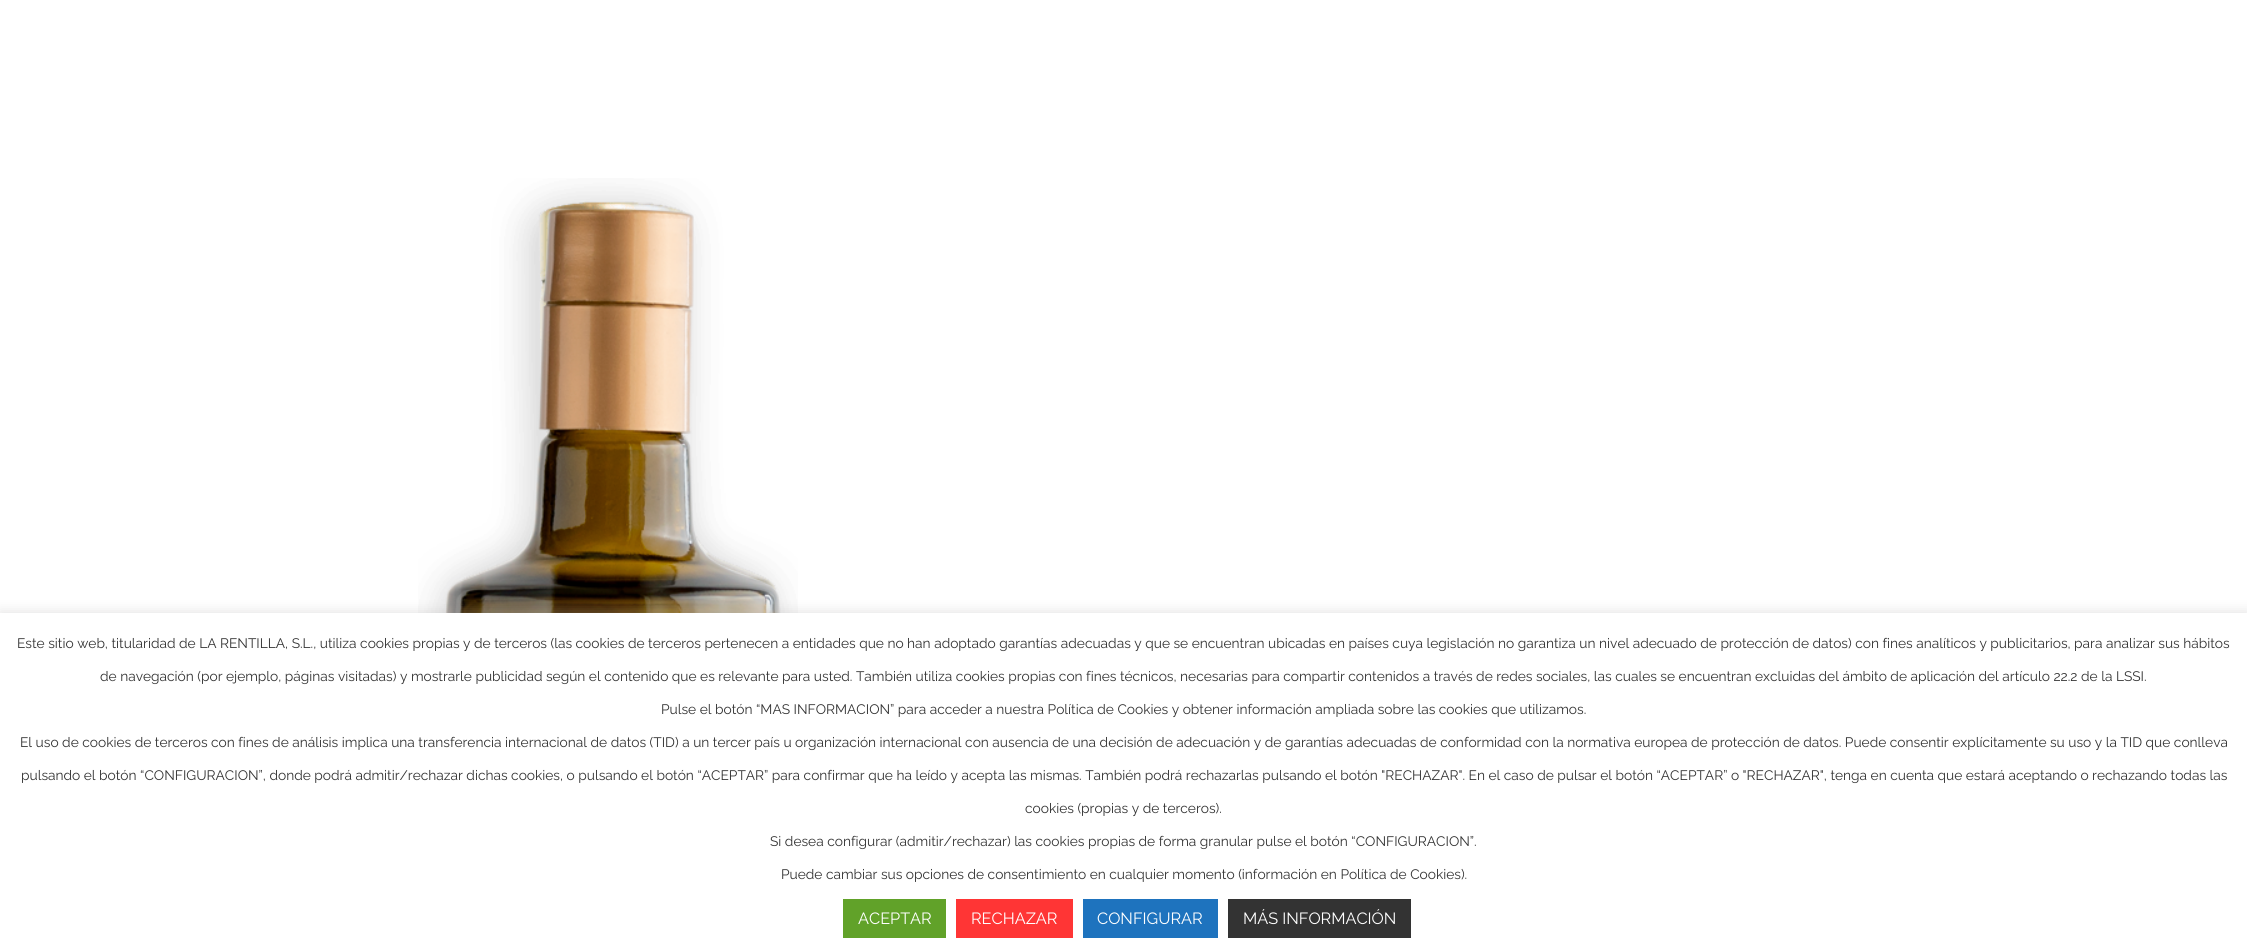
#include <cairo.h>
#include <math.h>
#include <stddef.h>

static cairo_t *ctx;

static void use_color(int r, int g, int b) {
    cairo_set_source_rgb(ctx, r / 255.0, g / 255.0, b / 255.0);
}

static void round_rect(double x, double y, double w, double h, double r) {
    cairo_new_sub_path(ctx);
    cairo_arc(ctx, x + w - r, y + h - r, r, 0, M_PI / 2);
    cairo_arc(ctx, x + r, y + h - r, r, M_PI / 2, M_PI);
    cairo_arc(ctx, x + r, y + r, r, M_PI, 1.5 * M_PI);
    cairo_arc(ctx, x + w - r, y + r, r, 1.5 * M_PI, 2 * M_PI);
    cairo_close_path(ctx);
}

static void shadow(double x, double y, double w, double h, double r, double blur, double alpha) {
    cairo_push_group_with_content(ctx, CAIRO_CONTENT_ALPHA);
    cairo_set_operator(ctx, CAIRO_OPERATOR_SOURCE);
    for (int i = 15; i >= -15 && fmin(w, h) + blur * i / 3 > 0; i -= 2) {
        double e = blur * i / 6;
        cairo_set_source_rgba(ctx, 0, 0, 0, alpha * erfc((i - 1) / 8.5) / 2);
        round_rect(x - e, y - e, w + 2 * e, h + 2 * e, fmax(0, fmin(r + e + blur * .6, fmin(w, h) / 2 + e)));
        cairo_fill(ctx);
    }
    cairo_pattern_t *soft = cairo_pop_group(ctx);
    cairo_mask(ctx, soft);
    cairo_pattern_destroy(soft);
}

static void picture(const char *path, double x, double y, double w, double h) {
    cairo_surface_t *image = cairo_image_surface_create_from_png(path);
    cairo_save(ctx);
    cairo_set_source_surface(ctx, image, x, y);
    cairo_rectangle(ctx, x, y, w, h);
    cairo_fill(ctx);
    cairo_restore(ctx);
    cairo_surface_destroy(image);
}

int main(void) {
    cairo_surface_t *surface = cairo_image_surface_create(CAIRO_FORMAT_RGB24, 2247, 952);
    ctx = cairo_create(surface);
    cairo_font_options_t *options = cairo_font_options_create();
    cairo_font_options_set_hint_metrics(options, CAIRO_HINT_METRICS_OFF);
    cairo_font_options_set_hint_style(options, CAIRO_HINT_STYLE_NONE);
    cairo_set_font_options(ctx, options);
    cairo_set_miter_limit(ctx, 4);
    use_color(255, 255, 255);
    cairo_paint(ctx);
    picture("img1.png", 418, 178, 380, 435);
    use_color(172, 171, 171);
    shadow(0, 611, 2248, 340, 0, 6, 0.3);
    use_color(255, 255, 255);
    cairo_rectangle(ctx, 0, 613, 2247, 339);
    cairo_fill(ctx);
    cairo_select_font_face(ctx, "Raleway Thin", CAIRO_FONT_SLANT_NORMAL, CAIRO_FONT_WEIGHT_NORMAL);
    cairo_set_font_size(ctx, 13.75);
    use_color(51, 51, 51);
    cairo_move_to(ctx, 17, 648);
    cairo_show_text(ctx, "Este sitio web, titularidad de LA RENTILLA, S.L., utiliza cookies propias y de terceros (las cookies de terceros pertenecen a entidades que no han adoptado garantías adecuadas y que se encuentran ubicadas en países cuya legislación no garantiza un nivel adecuado de protección de datos) con fines analíticos y publicitarios, para analizar sus hábitos");
    cairo_move_to(ctx, 100, 681);
    cairo_show_text(ctx, "de navegación (por ejemplo, páginas visitadas) y mostrarle publicidad según el contenido que es relevante para usted. También utiliza cookies propias con fines técnicos, necesarias para compartir contenidos a través de redes sociales, las cuales se encuentran excluidas del ámbito de aplicación del artículo 22.2 de la LSSI.");
    cairo_move_to(ctx, 661, 714);
    cairo_show_text(ctx, "Pulse el botón “MAS INFORMACION” para acceder a nuestra Política de Cookies y obtener información ampliada sobre las cookies que utilizamos.");
    cairo_move_to(ctx, 20, 747);
    cairo_show_text(ctx, "El uso de cookies de terceros con fines de análisis implica una transferencia internacional de datos (TID) a un tercer país u organización internacional con ausencia de una decisión de adecuación y de garantías adecuadas de conformidad con la normativa europea de protección de datos. Puede consentir explícitamente su uso y la TID que conlleva");
    cairo_move_to(ctx, 21, 780);
    cairo_show_text(ctx, "pulsando el botón “CONFIGURACION”, donde podrá admitir/rechazar dichas cookies, o pulsando el botón “ACEPTAR” para confirmar que ha leído y acepta las mismas. También podrá rechazarlas pulsando el botón \"RECHAZAR\". En el caso de pulsar el botón “ACEPTAR” o \"RECHAZAR\", tenga en cuenta que estará aceptando o rechazando todas las");
    cairo_move_to(ctx, 1025, 813);
    cairo_show_text(ctx, "cookies (propias y de terceros).");
    cairo_move_to(ctx, 770, 846);
    cairo_show_text(ctx, "Si desea configurar (admitir/rechazar) las cookies propias de forma granular pulse el botón “CONFIGURACION”.");
    cairo_move_to(ctx, 781, 879);
    cairo_show_text(ctx, "Puede cambiar sus opciones de consentimiento en cualquier momento (información en Política de Cookies).");
    use_color(97, 162, 41);
    cairo_rectangle(ctx, 843, 899, 103, 39);
    cairo_fill(ctx);
    cairo_set_font_size(ctx, 16.25);
    use_color(255, 255, 255);
    cairo_move_to(ctx, 858, 924);
    cairo_show_text(ctx, "ACEPTAR");
    use_color(255, 53, 53);
    cairo_rectangle(ctx, 956, 899, 117, 39);
    cairo_fill(ctx);
    use_color(255, 255, 255);
    cairo_move_to(ctx, 971, 924);
    cairo_show_text(ctx, "RECHAZAR");
    use_color(30, 115, 190);
    cairo_rectangle(ctx, 1083, 899, 135, 39);
    cairo_fill(ctx);
    use_color(255, 255, 255);
    cairo_move_to(ctx, 1097, 924);
    cairo_show_text(ctx, "CONFIGURAR");
    use_color(51, 51, 51);
    cairo_rectangle(ctx, 1228, 899, 183, 39);
    cairo_fill(ctx);
    use_color(255, 255, 255);
    cairo_move_to(ctx, 1243, 924);
    cairo_show_text(ctx, "MÁS INFORMACIÓN");
    cairo_surface_write_to_png(surface, "result.png");
    cairo_font_options_destroy(options);
    cairo_destroy(ctx);
    cairo_surface_destroy(surface);
    return 0;
}
